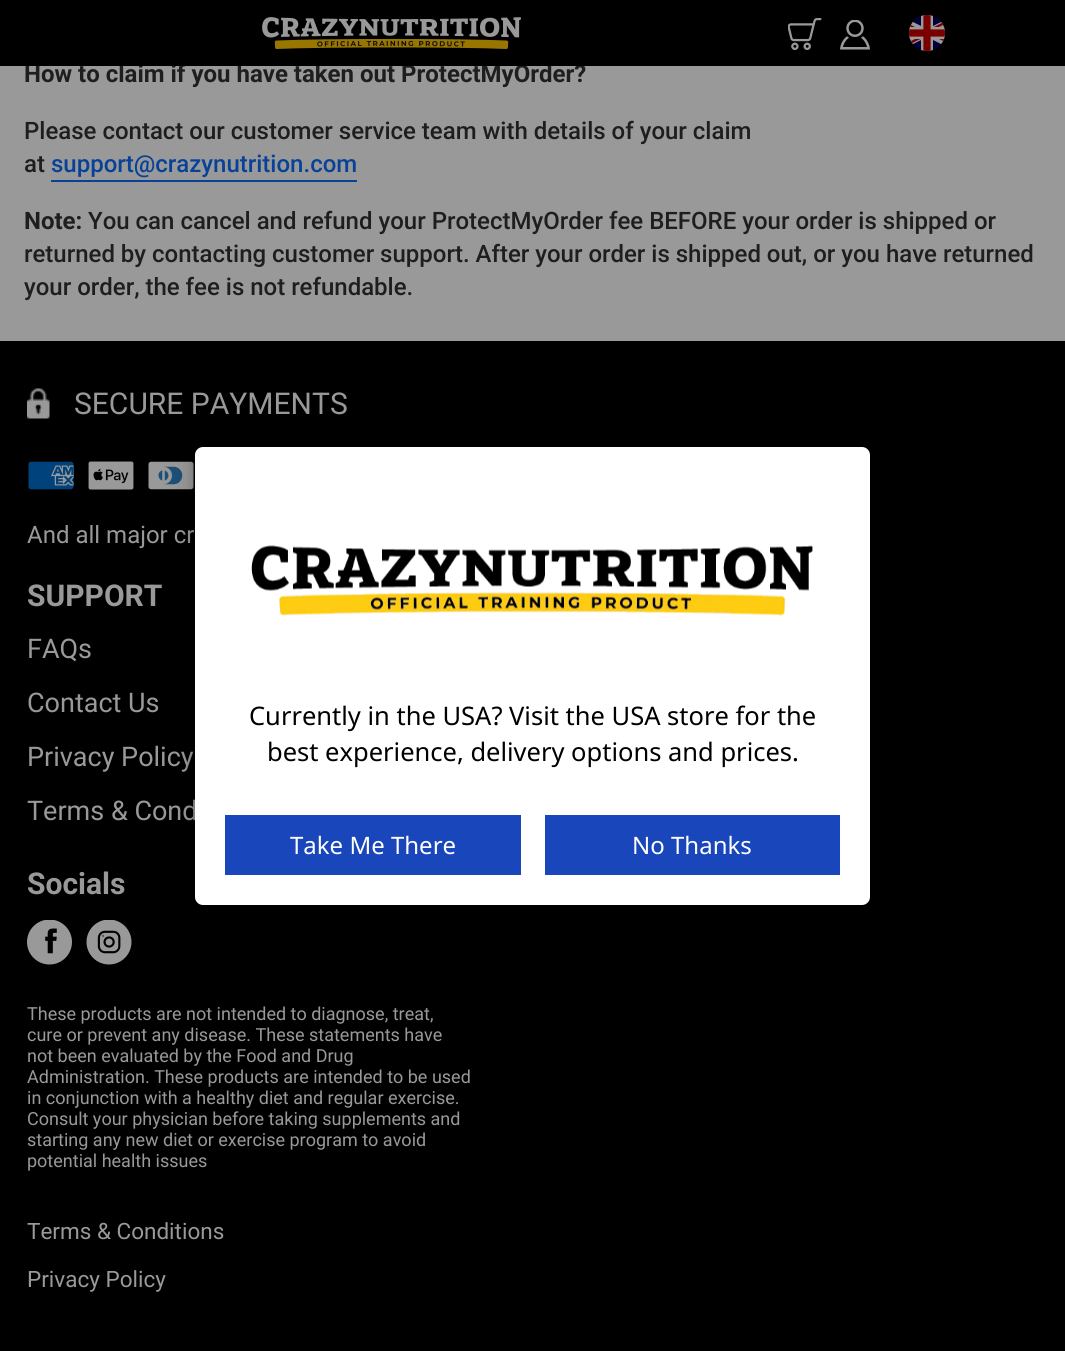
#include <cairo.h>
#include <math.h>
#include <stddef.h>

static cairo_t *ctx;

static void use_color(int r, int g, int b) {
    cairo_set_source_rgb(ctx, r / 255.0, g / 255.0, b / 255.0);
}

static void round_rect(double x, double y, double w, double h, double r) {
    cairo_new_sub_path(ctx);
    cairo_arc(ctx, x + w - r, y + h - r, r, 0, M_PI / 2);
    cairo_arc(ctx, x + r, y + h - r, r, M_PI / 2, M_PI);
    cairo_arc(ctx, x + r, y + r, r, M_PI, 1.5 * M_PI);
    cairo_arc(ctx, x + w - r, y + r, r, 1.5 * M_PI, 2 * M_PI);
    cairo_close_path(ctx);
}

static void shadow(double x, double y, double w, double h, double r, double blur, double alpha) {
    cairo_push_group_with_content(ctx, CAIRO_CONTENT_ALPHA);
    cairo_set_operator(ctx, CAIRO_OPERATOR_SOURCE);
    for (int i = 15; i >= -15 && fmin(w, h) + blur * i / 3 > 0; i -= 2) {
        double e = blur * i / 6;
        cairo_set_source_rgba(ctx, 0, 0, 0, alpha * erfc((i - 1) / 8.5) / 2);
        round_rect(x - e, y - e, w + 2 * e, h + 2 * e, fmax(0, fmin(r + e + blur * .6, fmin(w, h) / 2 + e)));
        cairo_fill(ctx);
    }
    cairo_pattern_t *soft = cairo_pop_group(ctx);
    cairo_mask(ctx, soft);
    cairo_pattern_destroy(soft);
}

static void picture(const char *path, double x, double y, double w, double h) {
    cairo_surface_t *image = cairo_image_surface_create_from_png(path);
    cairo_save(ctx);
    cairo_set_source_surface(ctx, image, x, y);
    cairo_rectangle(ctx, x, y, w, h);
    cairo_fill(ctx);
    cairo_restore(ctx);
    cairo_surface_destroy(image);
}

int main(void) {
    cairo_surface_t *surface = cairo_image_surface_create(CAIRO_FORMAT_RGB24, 1065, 1351);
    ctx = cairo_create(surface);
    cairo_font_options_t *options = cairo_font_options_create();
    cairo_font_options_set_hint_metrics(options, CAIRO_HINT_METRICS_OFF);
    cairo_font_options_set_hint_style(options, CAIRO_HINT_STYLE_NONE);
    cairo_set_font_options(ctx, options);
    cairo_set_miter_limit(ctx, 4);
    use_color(153, 153, 153);
    cairo_paint(ctx);
    cairo_select_font_face(ctx, "Roboto", CAIRO_FONT_SLANT_NORMAL, CAIRO_FONT_WEIGHT_BOLD);
    cairo_set_font_size(ctx, 24);
    use_color(31, 30, 30);
    cairo_move_to(ctx, 24, 82);
    cairo_show_text(ctx, "How to claim if you have taken out ProtectMyOrder?");
    use_color(0, 0, 0);
    cairo_rectangle(ctx, 0, 0, 1065, 66);
    cairo_fill(ctx);
    picture("img1.png", 262, 17, 259, 32);
    picture("img2.png", 788, 18, 34, 33);
    picture("img3.png", 840, 20, 30, 30);
    picture("img4.png", 909, 15, 36, 36);
    cairo_select_font_face(ctx, "Roboto Medium", CAIRO_FONT_SLANT_NORMAL, CAIRO_FONT_WEIGHT_NORMAL);
    use_color(31, 30, 30);
    cairo_move_to(ctx, 24, 139);
    cairo_show_text(ctx, "Please contact our customer service team with details of your claim");
    cairo_move_to(ctx, 24, 172);
    cairo_show_text(ctx, "at");
    use_color(8, 66, 152);
    cairo_move_to(ctx, 51, 172);
    cairo_show_text(ctx, "support@crazynutrition.com");
    cairo_rectangle(ctx, 51, 180, 306, 2);
    cairo_fill(ctx);
    cairo_select_font_face(ctx, "Roboto", CAIRO_FONT_SLANT_NORMAL, CAIRO_FONT_WEIGHT_BOLD);
    use_color(31, 30, 30);
    cairo_move_to(ctx, 24, 229);
    cairo_show_text(ctx, "Note:");
    cairo_select_font_face(ctx, "Roboto Medium", CAIRO_FONT_SLANT_NORMAL, CAIRO_FONT_WEIGHT_NORMAL);
    cairo_move_to(ctx, 88, 229);
    cairo_show_text(ctx, "You can cancel and refund your ProtectMyOrder fee BEFORE your order is shipped or");
    cairo_move_to(ctx, 24, 262);
    cairo_show_text(ctx, "returned by contacting customer support. After your order is shipped out, or you have returned");
    cairo_move_to(ctx, 24, 295);
    cairo_show_text(ctx, "your order, the fee is not refundable.");
    use_color(0, 0, 0);
    cairo_rectangle(ctx, 0, 341, 1065, 1010);
    cairo_fill(ctx);
    picture("img5.png", 27, 388, 23, 31);
    cairo_select_font_face(ctx, "Roboto", CAIRO_FONT_SLANT_NORMAL, CAIRO_FONT_WEIGHT_NORMAL);
    cairo_set_font_size(ctx, 30);
    use_color(153, 153, 153);
    cairo_move_to(ctx, 74, 414);
    cairo_show_text(ctx, "SECURE PAYMENTS");
    picture("img6.png", 28, 461, 46, 29);
    picture("img7.png", 88, 461, 46, 29);
    picture("img8.png", 148, 461, 46, 29);
    cairo_set_font_size(ctx, 24);
    cairo_move_to(ctx, 27, 543);
    cairo_show_text(ctx, "And all major cr");
    cairo_select_font_face(ctx, "Roboto", CAIRO_FONT_SLANT_NORMAL, CAIRO_FONT_WEIGHT_BOLD);
    cairo_set_font_size(ctx, 30);
    cairo_move_to(ctx, 27, 606);
    cairo_show_text(ctx, "SUPPORT");
    cairo_select_font_face(ctx, "Roboto", CAIRO_FONT_SLANT_NORMAL, CAIRO_FONT_WEIGHT_NORMAL);
    cairo_set_font_size(ctx, 27);
    cairo_move_to(ctx, 27, 658);
    cairo_show_text(ctx, "FAQs");
    cairo_move_to(ctx, 27, 712);
    cairo_show_text(ctx, "Contact Us");
    cairo_move_to(ctx, 27, 766);
    cairo_show_text(ctx, "Privacy Policy");
    cairo_move_to(ctx, 27, 820);
    cairo_show_text(ctx, "Terms & Cond");
    cairo_select_font_face(ctx, "Roboto", CAIRO_FONT_SLANT_NORMAL, CAIRO_FONT_WEIGHT_BOLD);
    cairo_set_font_size(ctx, 30);
    cairo_move_to(ctx, 27, 894);
    cairo_show_text(ctx, "Socials");
    picture("img9.png", 27, 920, 45, 45);
    picture("img10.png", 86, 920, 46, 45);
    cairo_select_font_face(ctx, "Roboto", CAIRO_FONT_SLANT_NORMAL, CAIRO_FONT_WEIGHT_NORMAL);
    cairo_set_font_size(ctx, 18);
    cairo_move_to(ctx, 27, 1020);
    cairo_show_text(ctx, "These products are not intended to diagnose, treat,");
    cairo_move_to(ctx, 27, 1041);
    cairo_show_text(ctx, "cure or prevent any disease. These statements have");
    cairo_move_to(ctx, 27, 1062);
    cairo_show_text(ctx, "not been evaluated by the Food and Drug");
    cairo_move_to(ctx, 27, 1083);
    cairo_show_text(ctx, "Administration. These products are intended to be used");
    cairo_move_to(ctx, 27, 1104);
    cairo_show_text(ctx, "in conjunction with a healthy diet and regular exercise.");
    cairo_move_to(ctx, 27, 1125);
    cairo_show_text(ctx, "Consult your physician before taking supplements and");
    cairo_move_to(ctx, 27, 1146);
    cairo_show_text(ctx, "starting any new diet or exercise program to avoid");
    cairo_move_to(ctx, 27, 1167);
    cairo_show_text(ctx, "potential health issues");
    cairo_set_font_size(ctx, 22.5);
    cairo_move_to(ctx, 27, 1239);
    cairo_show_text(ctx, "Terms & Conditions");
    cairo_move_to(ctx, 27, 1287);
    cairo_show_text(ctx, "Privacy Policy");
    use_color(0, 0, 0);
    shadow(195, 456, 675, 458, 8, 15, 0.19);
    shadow(195, 453, 675, 458, 8, 6, 0.2);
    use_color(255, 255, 255);
    round_rect(195, 447, 675, 458, 8);
    cairo_fill(ctx);
    picture("img11.png", 251, 545, 562, 71);
    cairo_select_font_face(ctx, "Noto Sans", CAIRO_FONT_SLANT_NORMAL, CAIRO_FONT_WEIGHT_NORMAL);
    cairo_set_font_size(ctx, 25.5);
    use_color(0, 0, 0);
    cairo_move_to(ctx, 249, 725);
    cairo_show_text(ctx, "Currently in the USA? Visit the USA store for the");
    cairo_move_to(ctx, 267, 761);
    cairo_show_text(ctx, "best experience, delivery options and prices.");
    use_color(25, 70, 186);
    cairo_rectangle(ctx, 225, 815, 296, 60);
    cairo_fill(ctx);
    cairo_set_font_size(ctx, 24);
    use_color(255, 255, 255);
    cairo_move_to(ctx, 290, 854);
    cairo_show_text(ctx, "Take Me There");
    use_color(25, 70, 186);
    cairo_rectangle(ctx, 545, 815, 295, 60);
    cairo_fill(ctx);
    use_color(255, 255, 255);
    cairo_move_to(ctx, 632, 854);
    cairo_show_text(ctx, "No Thanks");
    cairo_surface_write_to_png(surface, "result.png");
    cairo_font_options_destroy(options);
    cairo_destroy(ctx);
    cairo_surface_destroy(surface);
    return 0;
}
